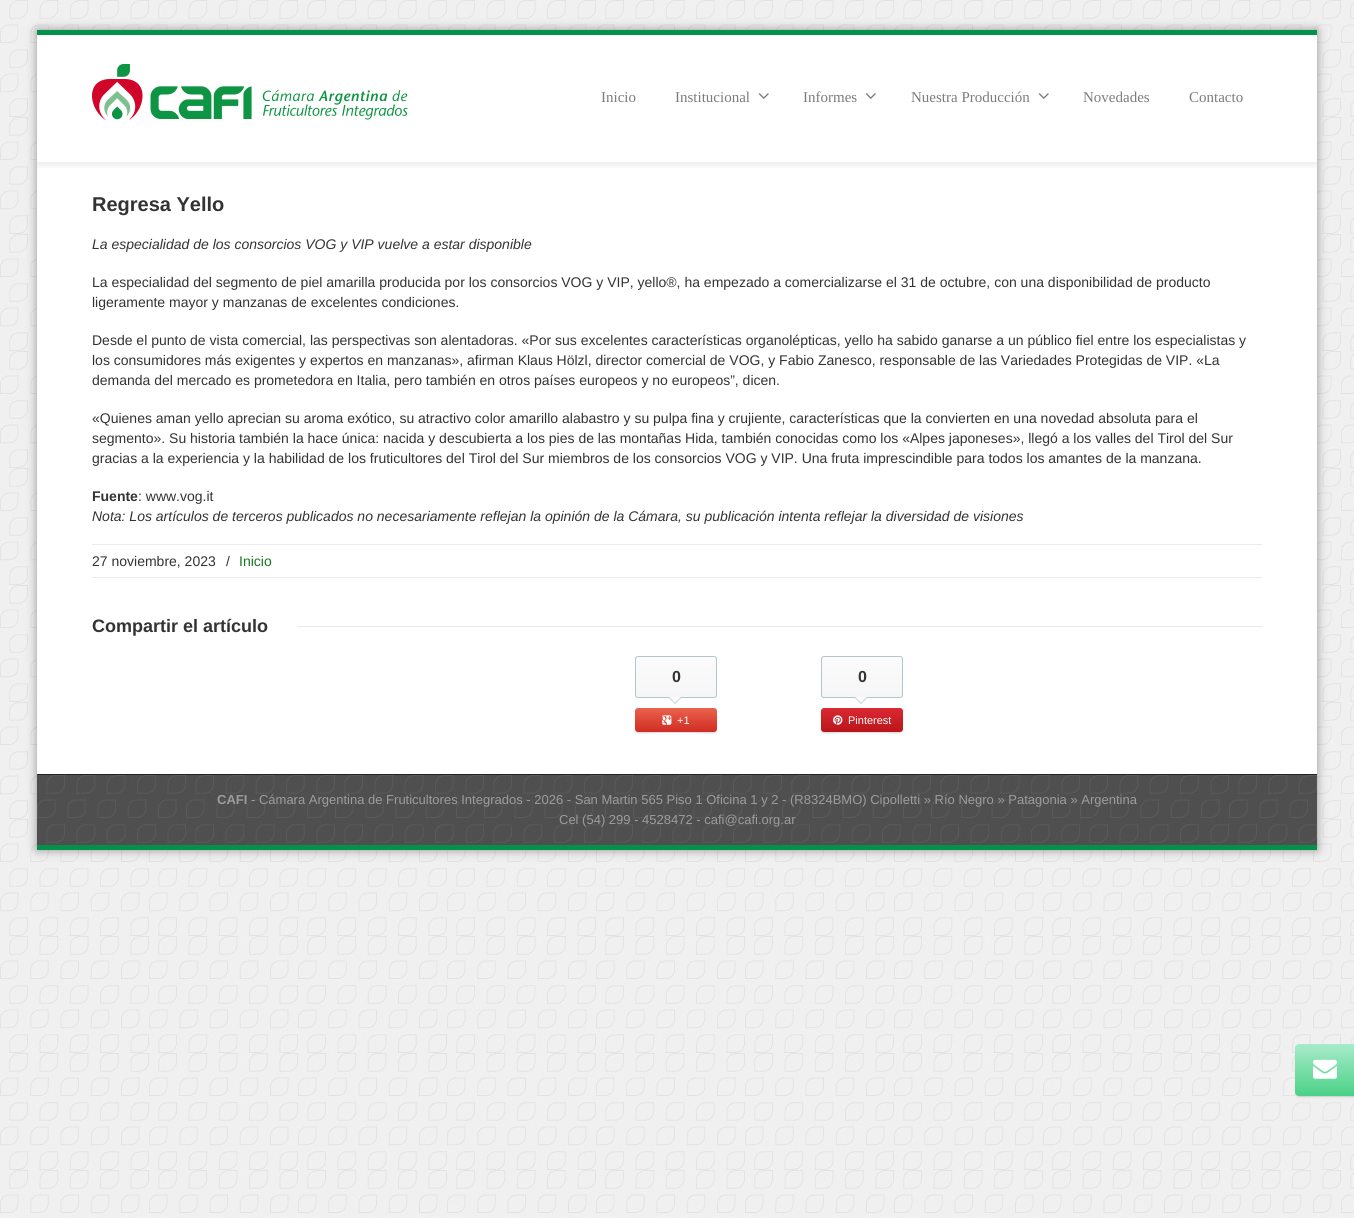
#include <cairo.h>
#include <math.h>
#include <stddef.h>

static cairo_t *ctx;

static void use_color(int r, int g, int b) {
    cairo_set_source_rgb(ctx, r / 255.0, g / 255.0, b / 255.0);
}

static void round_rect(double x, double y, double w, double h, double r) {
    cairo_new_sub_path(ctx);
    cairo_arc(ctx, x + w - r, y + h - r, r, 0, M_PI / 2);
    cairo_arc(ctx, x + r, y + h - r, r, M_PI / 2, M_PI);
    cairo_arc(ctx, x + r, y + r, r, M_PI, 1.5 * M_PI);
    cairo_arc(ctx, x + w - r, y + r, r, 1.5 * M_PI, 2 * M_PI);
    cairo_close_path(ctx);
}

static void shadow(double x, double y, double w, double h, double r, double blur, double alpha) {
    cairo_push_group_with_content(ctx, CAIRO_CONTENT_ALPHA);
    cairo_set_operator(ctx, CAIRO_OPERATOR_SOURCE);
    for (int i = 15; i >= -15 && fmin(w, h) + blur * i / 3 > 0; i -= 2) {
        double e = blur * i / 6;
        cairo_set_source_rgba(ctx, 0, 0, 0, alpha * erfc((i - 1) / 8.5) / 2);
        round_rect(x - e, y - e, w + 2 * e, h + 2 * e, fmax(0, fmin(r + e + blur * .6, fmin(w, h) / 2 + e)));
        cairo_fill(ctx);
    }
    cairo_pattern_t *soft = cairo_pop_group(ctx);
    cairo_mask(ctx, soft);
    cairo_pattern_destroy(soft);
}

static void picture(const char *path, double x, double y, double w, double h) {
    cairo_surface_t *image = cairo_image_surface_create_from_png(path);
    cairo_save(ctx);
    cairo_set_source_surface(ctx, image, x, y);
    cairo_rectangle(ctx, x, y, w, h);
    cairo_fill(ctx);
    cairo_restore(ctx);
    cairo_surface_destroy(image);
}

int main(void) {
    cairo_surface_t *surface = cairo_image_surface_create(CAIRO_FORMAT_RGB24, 1354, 1218);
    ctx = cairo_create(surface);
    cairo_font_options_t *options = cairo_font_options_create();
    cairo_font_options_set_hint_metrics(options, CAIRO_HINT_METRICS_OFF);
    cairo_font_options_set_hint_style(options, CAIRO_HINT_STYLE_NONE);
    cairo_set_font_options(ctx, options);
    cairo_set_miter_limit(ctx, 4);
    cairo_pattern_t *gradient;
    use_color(255, 255, 255);
    cairo_paint(ctx);
    picture("img1.png", 0, 0, 1354, 1218);
    use_color(0, 0, 0);
    shadow(37, 30, 1280, 820, 0, 5, 0.4);
    use_color(255, 255, 255);
    cairo_rectangle(ctx, 37, 35, 1280, 739);
    cairo_fill(ctx);
    use_color(3, 145, 76);
    cairo_rectangle(ctx, 37, 30, 1280, 5);
    cairo_fill(ctx);
    cairo_rectangle(ctx, 37, 845, 1280, 5);
    cairo_fill(ctx);
    cairo_save(ctx);
    cairo_rectangle(ctx, 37, 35, 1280, 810);
    cairo_clip(ctx);
    cairo_rectangle(ctx, 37, 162, 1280, 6);
    cairo_clip(ctx);
    use_color(0, 0, 0);
    shadow(37, 37, 1280, 127, 0, 5, 0.1);
    cairo_restore(ctx);
    picture("img2.png", 92, 64, 316, 56);
    cairo_select_font_face(ctx, "Liberation Serif", CAIRO_FONT_SLANT_NORMAL, CAIRO_FONT_WEIGHT_NORMAL);
    cairo_set_font_size(ctx, 15);
    use_color(124, 124, 124);
    cairo_move_to(ctx, 601, 102);
    cairo_show_text(ctx, "Inicio");
    cairo_move_to(ctx, 675, 102);
    cairo_show_text(ctx, "Institucional");
    picture("img3.png", 758, 93, 11, 6);
    cairo_move_to(ctx, 803, 102);
    cairo_show_text(ctx, "Informes");
    picture("img3.png", 865, 93, 11, 6);
    cairo_move_to(ctx, 911, 102);
    cairo_show_text(ctx, "Nuestra Producción");
    picture("img3.png", 1038, 93, 11, 6);
    cairo_move_to(ctx, 1083, 102);
    cairo_show_text(ctx, "Novedades");
    cairo_move_to(ctx, 1189, 102);
    cairo_show_text(ctx, "Contacto");
    cairo_select_font_face(ctx, "Liberation Sans", CAIRO_FONT_SLANT_NORMAL, CAIRO_FONT_WEIGHT_BOLD);
    cairo_set_font_size(ctx, 20);
    use_color(51, 51, 51);
    cairo_move_to(ctx, 92, 211);
    cairo_show_text(ctx, "Regresa Yello");
    cairo_select_font_face(ctx, "Liberation Sans", CAIRO_FONT_SLANT_ITALIC, CAIRO_FONT_WEIGHT_NORMAL);
    cairo_set_font_size(ctx, 14);
    cairo_move_to(ctx, 92, 249);
    cairo_show_text(ctx, "La especialidad de los consorcios VOG y VIP vuelve a estar disponible");
    cairo_select_font_face(ctx, "Liberation Sans", CAIRO_FONT_SLANT_NORMAL, CAIRO_FONT_WEIGHT_NORMAL);
    cairo_move_to(ctx, 92, 287);
    cairo_show_text(ctx, "La especialidad del segmento de piel amarilla producida por los consorcios VOG y VIP, yello®, ha empezado a comercializarse el 31 de octubre, con una disponibilidad de producto");
    cairo_move_to(ctx, 92, 307);
    cairo_show_text(ctx, "ligeramente mayor y manzanas de excelentes condiciones.");
    cairo_move_to(ctx, 92, 345);
    cairo_show_text(ctx, "Desde el punto de vista comercial, las perspectivas son alentadoras. «Por sus excelentes características organolépticas, yello ha sabido ganarse a un público fiel entre los especialistas y");
    cairo_move_to(ctx, 92, 365);
    cairo_show_text(ctx, "los consumidores más exigentes y expertos en manzanas», afirman Klaus Hölzl, director comercial de VOG, y Fabio Zanesco, responsable de las Variedades Protegidas de VIP. «La");
    cairo_move_to(ctx, 92, 385);
    cairo_show_text(ctx, "demanda del mercado es prometedora en Italia, pero también en otros países europeos y no europeos”, dicen.");
    cairo_move_to(ctx, 92, 423);
    cairo_show_text(ctx, "«Quienes aman yello aprecian su aroma exótico, su atractivo color amarillo alabastro y su pulpa fina y crujiente, características que la convierten en una novedad absoluta para el");
    cairo_move_to(ctx, 92, 443);
    cairo_show_text(ctx, "segmento». Su historia también la hace única: nacida y descubierta a los pies de las montañas Hida, también conocidas como los «Alpes japoneses», llegó a los valles del Tirol del Sur");
    cairo_move_to(ctx, 92, 463);
    cairo_show_text(ctx, "gracias a la experiencia y la habilidad de los fruticultores del Tirol del Sur miembros de los consorcios VOG y VIP. Una fruta imprescindible para todos los amantes de la manzana.");
    cairo_select_font_face(ctx, "Liberation Sans", CAIRO_FONT_SLANT_NORMAL, CAIRO_FONT_WEIGHT_BOLD);
    cairo_move_to(ctx, 92, 501);
    cairo_show_text(ctx, "Fuente");
    cairo_select_font_face(ctx, "Liberation Sans", CAIRO_FONT_SLANT_NORMAL, CAIRO_FONT_WEIGHT_NORMAL);
    cairo_move_to(ctx, 138, 501);
    cairo_show_text(ctx, ": www.vog.it");
    cairo_select_font_face(ctx, "Liberation Sans", CAIRO_FONT_SLANT_ITALIC, CAIRO_FONT_WEIGHT_NORMAL);
    cairo_move_to(ctx, 92, 521);
    cairo_show_text(ctx, "Nota: Los artículos de terceros publicados no necesariamente reflejan la opinión de la Cámara, su publicación intenta reflejar la diversidad de visiones");
    use_color(235, 235, 235);
    cairo_rectangle(ctx, 92, 544, 1170, 1);
    cairo_fill(ctx);
    cairo_rectangle(ctx, 92, 577, 1170, 1);
    cairo_fill(ctx);
    cairo_select_font_face(ctx, "Liberation Sans", CAIRO_FONT_SLANT_NORMAL, CAIRO_FONT_WEIGHT_NORMAL);
    use_color(51, 51, 51);
    cairo_move_to(ctx, 92, 566);
    cairo_show_text(ctx, "27 noviembre, 2023");
    cairo_move_to(ctx, 226, 566);
    cairo_show_text(ctx, "/");
    use_color(25, 117, 34);
    cairo_move_to(ctx, 239, 566);
    cairo_show_text(ctx, "Inicio");
    cairo_select_font_face(ctx, "Liberation Sans", CAIRO_FONT_SLANT_NORMAL, CAIRO_FONT_WEIGHT_BOLD);
    cairo_set_font_size(ctx, 18);
    use_color(51, 51, 51);
    cairo_move_to(ctx, 92, 632);
    cairo_show_text(ctx, "Compartir el artículo");
    use_color(235, 235, 235);
    cairo_rectangle(ctx, 298, 626, 964, 1);
    cairo_fill(ctx);
    cairo_save(ctx);
    round_rect(635, 656, 82, 42, 3);
    cairo_clip(ctx);
    gradient = cairo_pattern_create_linear(676, 657, 676, 697);
    cairo_pattern_add_color_stop_rgba(gradient, 0, 0.984, 0.984, 0.984, 1);
    cairo_pattern_add_color_stop_rgba(gradient, 1, 0.965, 0.965, 0.965, 1);
    cairo_set_source(ctx, gradient);
    cairo_pattern_destroy(gradient);
    cairo_rectangle(ctx, 635, 657, 82, 40);
    cairo_fill(ctx);
    cairo_restore(ctx);
    round_rect(635.5, 656.5, 81, 41, 2.5);
    use_color(178, 198, 204);
    cairo_set_line_width(ctx, 1);
    cairo_stroke(ctx);
    cairo_set_font_size(ctx, 16);
    use_color(51, 51, 51);
    cairo_move_to(ctx, 672, 682);
    cairo_show_text(ctx, "0");
    use_color(178, 198, 204);
    cairo_new_path(ctx);
    cairo_move_to(ctx, 668, 697);
    cairo_line_to(ctx, 682, 697);
    cairo_line_to(ctx, 675, 704);
    cairo_close_path(ctx);
    cairo_fill(ctx);
    use_color(251, 251, 251);
    cairo_new_path(ctx);
    cairo_move_to(ctx, 669, 697);
    cairo_line_to(ctx, 681, 697);
    cairo_line_to(ctx, 675, 703);
    cairo_close_path(ctx);
    cairo_fill(ctx);
    use_color(235, 235, 235);
    cairo_new_path(ctx);
    cairo_move_to(ctx, 635, 729);
    cairo_curve_to(ctx, 635, 736, 647, 733, 651, 733);
    cairo_line_to(ctx, 701, 733);
    cairo_curve_to(ctx, 705, 733, 717, 736, 717, 729);
    cairo_curve_to(ctx, 717, 731, 716, 732, 714, 732);
    cairo_line_to(ctx, 638, 732);
    cairo_curve_to(ctx, 636, 732, 635, 731, 635, 729);
    cairo_close_path(ctx);
    cairo_fill(ctx);
    use_color(0, 0, 0);
    shadow(635, 710, 82, 24, 3, 1, 0.05);
    gradient = cairo_pattern_create_linear(676, 708, 676, 732);
    cairo_pattern_add_color_stop_rgba(gradient, 0, 0.918, 0.388, 0.302, 1);
    cairo_pattern_add_color_stop_rgba(gradient, 1, 0.816, 0.173, 0.137, 1);
    cairo_set_source(ctx, gradient);
    cairo_pattern_destroy(gradient);
    round_rect(635, 708, 82, 24, 3);
    cairo_fill(ctx);
    picture("img4.png", 662, 715, 10, 10);
    cairo_select_font_face(ctx, "Liberation Sans", CAIRO_FONT_SLANT_NORMAL, CAIRO_FONT_WEIGHT_NORMAL);
    cairo_set_font_size(ctx, 11);
    use_color(255, 255, 255);
    cairo_move_to(ctx, 677, 724);
    cairo_show_text(ctx, "+1");
    cairo_save(ctx);
    round_rect(821, 656, 82, 42, 3);
    cairo_clip(ctx);
    gradient = cairo_pattern_create_linear(862, 657, 862, 697);
    cairo_pattern_add_color_stop_rgba(gradient, 0, 0.984, 0.984, 0.984, 1);
    cairo_pattern_add_color_stop_rgba(gradient, 1, 0.965, 0.965, 0.965, 1);
    cairo_set_source(ctx, gradient);
    cairo_pattern_destroy(gradient);
    cairo_rectangle(ctx, 821, 657, 82, 40);
    cairo_fill(ctx);
    cairo_restore(ctx);
    round_rect(821.5, 656.5, 81, 41, 2.5);
    use_color(178, 198, 204);
    cairo_stroke(ctx);
    cairo_select_font_face(ctx, "Liberation Sans", CAIRO_FONT_SLANT_NORMAL, CAIRO_FONT_WEIGHT_BOLD);
    cairo_set_font_size(ctx, 16);
    use_color(51, 51, 51);
    cairo_move_to(ctx, 858, 682);
    cairo_show_text(ctx, "0");
    use_color(178, 198, 204);
    cairo_new_path(ctx);
    cairo_move_to(ctx, 854, 697);
    cairo_line_to(ctx, 868, 697);
    cairo_line_to(ctx, 861, 704);
    cairo_close_path(ctx);
    cairo_fill(ctx);
    use_color(251, 251, 251);
    cairo_new_path(ctx);
    cairo_move_to(ctx, 855, 697);
    cairo_line_to(ctx, 867, 697);
    cairo_line_to(ctx, 861, 703);
    cairo_close_path(ctx);
    cairo_fill(ctx);
    use_color(235, 235, 235);
    cairo_new_path(ctx);
    cairo_move_to(ctx, 821, 729);
    cairo_curve_to(ctx, 821, 736, 833, 733, 837, 733);
    cairo_line_to(ctx, 887, 733);
    cairo_curve_to(ctx, 891, 733, 903, 736, 903, 729);
    cairo_curve_to(ctx, 903, 731, 902, 732, 900, 732);
    cairo_line_to(ctx, 824, 732);
    cairo_curve_to(ctx, 822, 732, 821, 731, 821, 729);
    cairo_close_path(ctx);
    cairo_fill(ctx);
    use_color(0, 0, 0);
    shadow(821, 710, 82, 24, 3, 1, 0.05);
    gradient = cairo_pattern_create_linear(862, 708, 862, 732);
    cairo_pattern_add_color_stop_rgba(gradient, 0, 0.855, 0.161, 0.2, 1);
    cairo_pattern_add_color_stop_rgba(gradient, 1, 0.729, 0.082, 0.102, 1);
    cairo_set_source(ctx, gradient);
    cairo_pattern_destroy(gradient);
    round_rect(821, 708, 82, 24, 3);
    cairo_fill(ctx);
    picture("img5.png", 833, 715, 10, 10);
    cairo_select_font_face(ctx, "Liberation Sans", CAIRO_FONT_SLANT_NORMAL, CAIRO_FONT_WEIGHT_NORMAL);
    cairo_set_font_size(ctx, 11);
    use_color(255, 255, 255);
    cairo_move_to(ctx, 848, 724);
    cairo_show_text(ctx, "Pinterest");
    picture("img6.png", 37, 775, 1280, 70);
    use_color(34, 34, 34);
    cairo_rectangle(ctx, 37, 774, 1280, 1);
    cairo_fill(ctx);
    cairo_select_font_face(ctx, "Liberation Sans", CAIRO_FONT_SLANT_NORMAL, CAIRO_FONT_WEIGHT_BOLD);
    cairo_set_font_size(ctx, 13);
    use_color(156, 156, 156);
    cairo_move_to(ctx, 217, 804);
    cairo_show_text(ctx, "CAFI");
    cairo_select_font_face(ctx, "Liberation Sans", CAIRO_FONT_SLANT_NORMAL, CAIRO_FONT_WEIGHT_NORMAL);
    cairo_move_to(ctx, 251, 804);
    cairo_show_text(ctx, "- Cámara Argentina de Fruticultores Integrados - 2026 - San Martin 565 Piso 1 Oficina 1 y 2 - (R8324BMO) Cipolletti » Río Negro » Patagonia » Argentina");
    cairo_move_to(ctx, 559, 824);
    cairo_show_text(ctx, "Cel (54) 299 - 4528472 - cafi@cafi.org.ar");
    cairo_set_source_rgba(ctx, 0, 0, 0, 0.08);
    cairo_new_path(ctx);
    cairo_move_to(ctx, 1295, 1092);
    cairo_curve_to(ctx, 1295, 1099, 1303, 1097, 1308, 1097);
    cairo_line_to(ctx, 1346, 1097);
    cairo_curve_to(ctx, 1351, 1097, 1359, 1099, 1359, 1092);
    cairo_curve_to(ctx, 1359, 1094, 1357, 1096, 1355, 1096);
    cairo_line_to(ctx, 1299, 1096);
    cairo_curve_to(ctx, 1297, 1096, 1295, 1094, 1295, 1092);
    cairo_close_path(ctx);
    cairo_fill(ctx);
    use_color(0, 0, 0);
    shadow(1295, 1046, 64, 52, 4, 1, 0.05);
    gradient = cairo_pattern_create_linear(1327, 1044, 1327, 1096);
    cairo_pattern_add_color_stop_rgba(gradient, 0, 0.659, 0.922, 0.792, 1);
    cairo_pattern_add_color_stop_rgba(gradient, 1, 0.294, 0.82, 0.529, 1);
    cairo_set_source(ctx, gradient);
    cairo_pattern_destroy(gradient);
    round_rect(1295, 1044, 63, 52, 4);
    cairo_fill(ctx);
    picture("img7.png", 1313, 1059, 24, 20);
    cairo_surface_write_to_png(surface, "result.png");
    cairo_font_options_destroy(options);
    cairo_destroy(ctx);
    cairo_surface_destroy(surface);
    return 0;
}
